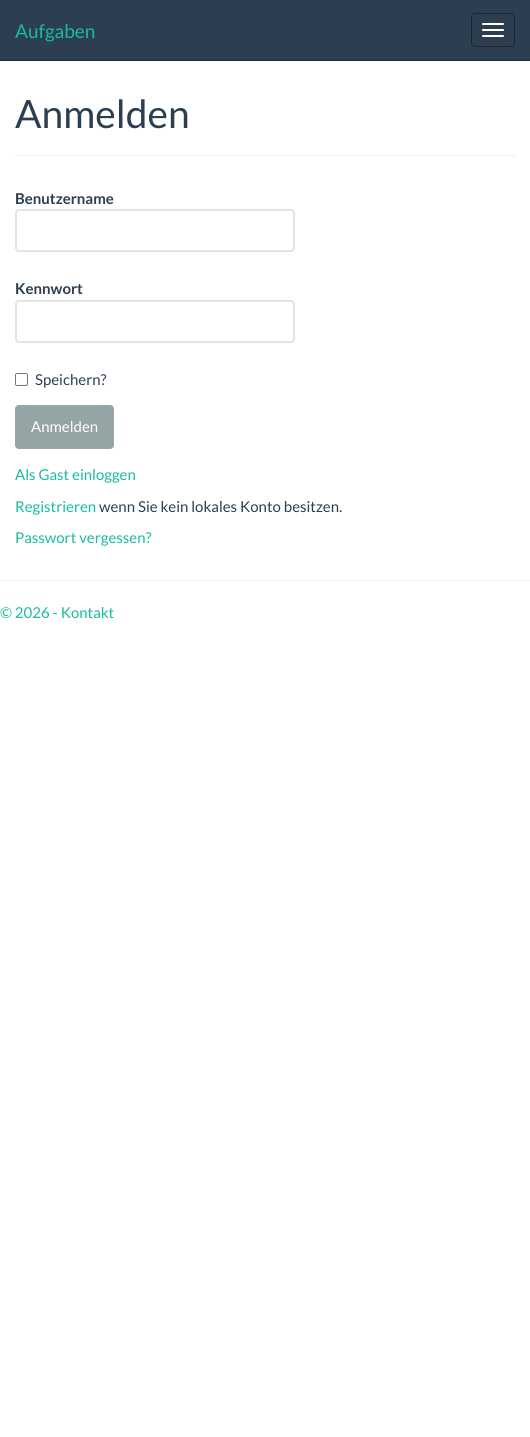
#include <cairo.h>
#include <math.h>
#include <stddef.h>

static cairo_t *ctx;

static void use_color(int r, int g, int b) {
    cairo_set_source_rgb(ctx, r / 255.0, g / 255.0, b / 255.0);
}

static void round_rect(double x, double y, double w, double h, double r) {
    cairo_new_sub_path(ctx);
    cairo_arc(ctx, x + w - r, y + h - r, r, 0, M_PI / 2);
    cairo_arc(ctx, x + r, y + h - r, r, M_PI / 2, M_PI);
    cairo_arc(ctx, x + r, y + r, r, M_PI, 1.5 * M_PI);
    cairo_arc(ctx, x + w - r, y + r, r, 1.5 * M_PI, 2 * M_PI);
    cairo_close_path(ctx);
}

int main(void) {
    cairo_surface_t *surface = cairo_image_surface_create(CAIRO_FORMAT_RGB24, 530, 1437);
    ctx = cairo_create(surface);
    cairo_font_options_t *options = cairo_font_options_create();
    cairo_font_options_set_hint_metrics(options, CAIRO_HINT_METRICS_OFF);
    cairo_font_options_set_hint_style(options, CAIRO_HINT_STYLE_NONE);
    cairo_set_font_options(ctx, options);
    cairo_set_miter_limit(ctx, 4);
    use_color(255, 255, 255);
    cairo_paint(ctx);
    use_color(44, 62, 80);
    cairo_rectangle(ctx, 0, 0, 530, 60);
    cairo_fill(ctx);
    use_color(32, 45, 59);
    cairo_rectangle(ctx, 0, 60, 530, 1);
    cairo_fill(ctx);
    cairo_select_font_face(ctx, "Lato", CAIRO_FONT_SLANT_NORMAL, CAIRO_FONT_WEIGHT_NORMAL);
    cairo_set_font_size(ctx, 19);
    use_color(24, 188, 156);
    cairo_move_to(ctx, 15, 38);
    cairo_show_text(ctx, "Aufgaben");
    round_rect(471.5, 13.5, 43, 33, 3.5);
    use_color(26, 36, 47);
    cairo_set_line_width(ctx, 1);
    cairo_stroke(ctx);
    use_color(255, 255, 255);
    round_rect(482, 23, 22, 2, 1);
    cairo_fill(ctx);
    round_rect(482, 29, 22, 2, 1);
    cairo_fill(ctx);
    round_rect(482, 35, 22, 2, 1);
    cairo_fill(ctx);
    use_color(236, 240, 241);
    cairo_rectangle(ctx, 15, 155, 500, 1);
    cairo_fill(ctx);
    cairo_set_font_size(ctx, 39);
    use_color(44, 62, 80);
    cairo_move_to(ctx, 15, 128);
    cairo_show_text(ctx, "Anmelden");
    cairo_select_font_face(ctx, "Lato", CAIRO_FONT_SLANT_NORMAL, CAIRO_FONT_WEIGHT_BOLD);
    cairo_set_font_size(ctx, 15);
    cairo_move_to(ctx, 15, 204);
    cairo_show_text(ctx, "Benutzername");
    round_rect(16, 210, 278, 41, 3);
    use_color(220, 228, 236);
    cairo_set_line_width(ctx, 2);
    cairo_stroke(ctx);
    use_color(44, 62, 80);
    cairo_move_to(ctx, 15, 294);
    cairo_show_text(ctx, "Kennwort");
    round_rect(16, 301, 278, 41, 3);
    use_color(220, 228, 236);
    cairo_stroke(ctx);
    round_rect(15.5, 373.5, 12, 12, 1.5);
    use_color(118, 118, 118);
    cairo_set_line_width(ctx, 1);
    cairo_stroke(ctx);
    cairo_select_font_face(ctx, "Lato", CAIRO_FONT_SLANT_NORMAL, CAIRO_FONT_WEIGHT_NORMAL);
    use_color(44, 62, 80);
    cairo_move_to(ctx, 35, 385);
    cairo_show_text(ctx, "Speichern?");
    use_color(149, 165, 166);
    round_rect(15.5, 405.5, 98, 43, 3.5);
    cairo_fill_preserve(ctx);
    cairo_stroke(ctx);
    use_color(255, 255, 255);
    cairo_move_to(ctx, 31, 432);
    cairo_show_text(ctx, "Anmelden");
    use_color(24, 188, 156);
    cairo_move_to(ctx, 15, 480);
    cairo_show_text(ctx, "Als Gast einloggen");
    cairo_move_to(ctx, 15, 512);
    cairo_show_text(ctx, "Registrieren");
    use_color(44, 62, 80);
    cairo_move_to(ctx, 99, 512);
    cairo_show_text(ctx, "wenn Sie kein lokales Konto besitzen.");
    use_color(24, 188, 156);
    cairo_move_to(ctx, 15, 543);
    cairo_show_text(ctx, "Passwort vergessen?");
    use_color(236, 240, 241);
    cairo_rectangle(ctx, 0, 580, 530, 1);
    cairo_fill(ctx);
    use_color(24, 188, 156);
    cairo_move_to(ctx, 0, 618);
    cairo_show_text(ctx, "© 2026 - Kontakt");
    cairo_surface_write_to_png(surface, "result.png");
    cairo_font_options_destroy(options);
    cairo_destroy(ctx);
    cairo_surface_destroy(surface);
    return 0;
}
